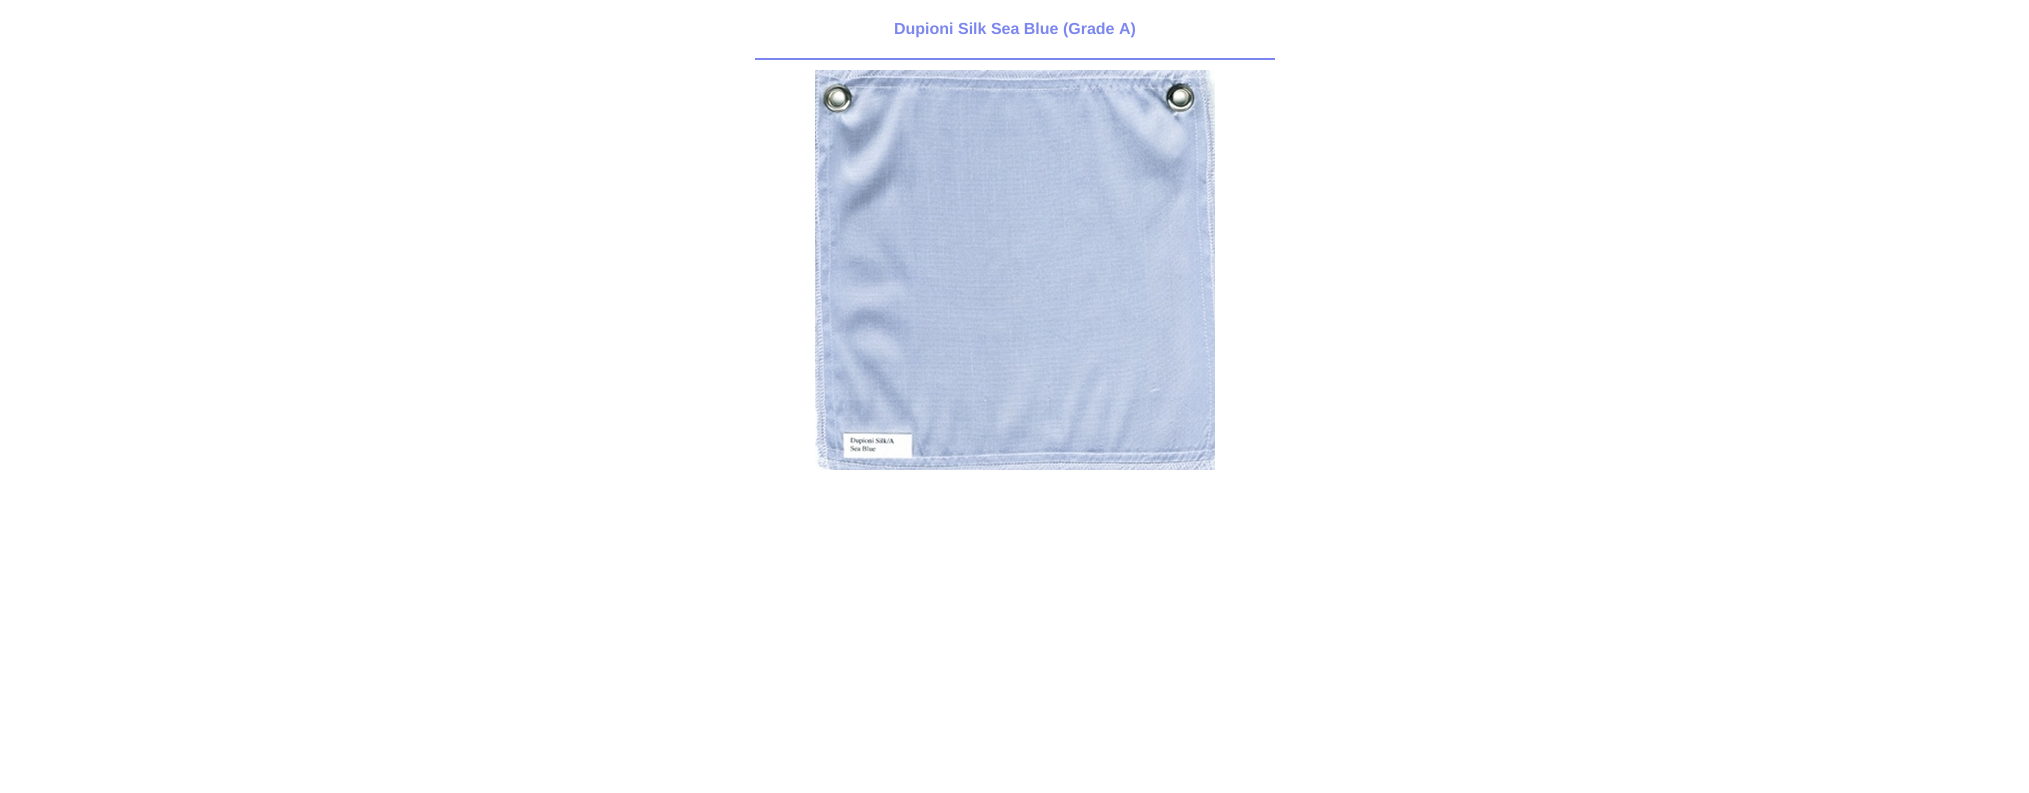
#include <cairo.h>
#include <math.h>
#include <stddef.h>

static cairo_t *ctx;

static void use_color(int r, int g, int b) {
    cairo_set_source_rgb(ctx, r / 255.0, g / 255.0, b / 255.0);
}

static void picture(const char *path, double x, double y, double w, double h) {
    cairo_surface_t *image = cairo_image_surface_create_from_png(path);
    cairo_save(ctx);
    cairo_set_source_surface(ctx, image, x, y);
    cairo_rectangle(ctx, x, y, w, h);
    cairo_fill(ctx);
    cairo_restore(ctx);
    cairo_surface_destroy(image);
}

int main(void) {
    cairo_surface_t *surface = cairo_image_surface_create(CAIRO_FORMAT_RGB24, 2029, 793);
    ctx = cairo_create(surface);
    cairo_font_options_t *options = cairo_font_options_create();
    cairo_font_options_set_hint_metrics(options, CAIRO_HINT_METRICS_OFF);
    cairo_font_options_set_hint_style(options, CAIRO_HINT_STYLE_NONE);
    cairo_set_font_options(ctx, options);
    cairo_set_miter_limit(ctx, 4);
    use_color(255, 255, 255);
    cairo_paint(ctx);
    use_color(123, 134, 239);
    cairo_rectangle(ctx, 755, 58, 520, 2);
    cairo_fill(ctx);
    cairo_select_font_face(ctx, "Liberation Sans", CAIRO_FONT_SLANT_NORMAL, CAIRO_FONT_WEIGHT_BOLD);
    cairo_set_font_size(ctx, 16);
    cairo_move_to(ctx, 894, 34);
    cairo_show_text(ctx, "Dupioni Silk Sea Blue (Grade A)");
    picture("img1.png", 815, 70, 400, 400);
    cairo_surface_write_to_png(surface, "result.png");
    cairo_font_options_destroy(options);
    cairo_destroy(ctx);
    cairo_surface_destroy(surface);
    return 0;
}
